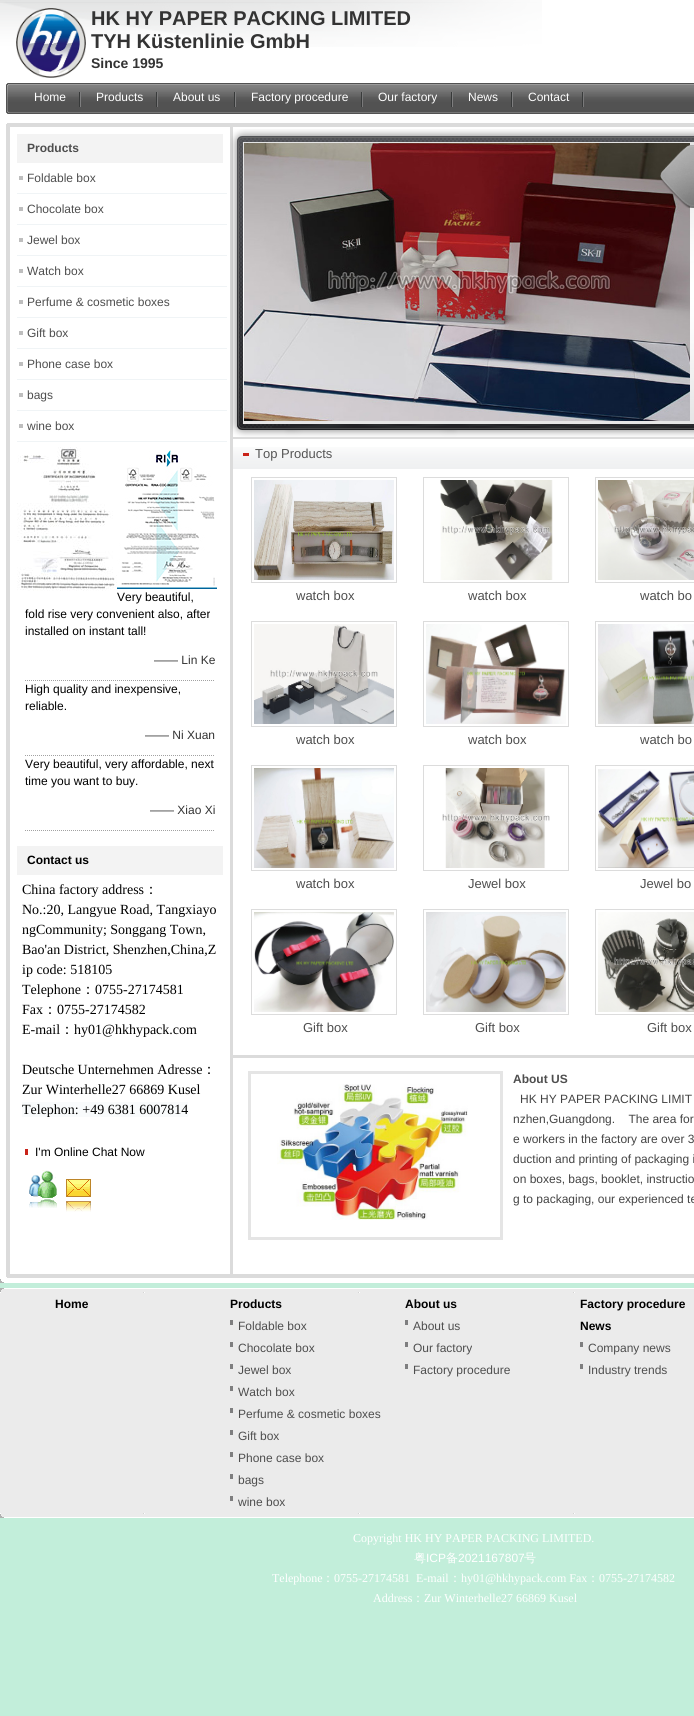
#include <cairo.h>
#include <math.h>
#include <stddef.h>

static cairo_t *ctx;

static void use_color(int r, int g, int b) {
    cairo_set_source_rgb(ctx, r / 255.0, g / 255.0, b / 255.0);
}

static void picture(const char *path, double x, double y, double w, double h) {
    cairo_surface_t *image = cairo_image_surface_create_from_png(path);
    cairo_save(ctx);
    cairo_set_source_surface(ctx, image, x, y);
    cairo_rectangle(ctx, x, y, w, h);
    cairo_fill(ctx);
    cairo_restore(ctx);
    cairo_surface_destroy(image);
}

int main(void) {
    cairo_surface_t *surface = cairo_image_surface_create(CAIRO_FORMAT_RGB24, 694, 1716);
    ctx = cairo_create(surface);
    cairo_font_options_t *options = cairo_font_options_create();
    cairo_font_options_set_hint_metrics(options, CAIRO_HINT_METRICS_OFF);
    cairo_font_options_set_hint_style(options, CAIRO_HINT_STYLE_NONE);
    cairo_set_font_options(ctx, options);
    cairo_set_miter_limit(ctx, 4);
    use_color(194, 238, 218);
    cairo_paint(ctx);
    use_color(255, 255, 255);
    cairo_rectangle(ctx, 0, 0, 694, 124);
    cairo_fill(ctx);
    picture("img1.png", 0, 0, 542, 47);
    picture("img2.png", 16, 8, 70, 70);
    cairo_select_font_face(ctx, "Liberation Sans", CAIRO_FONT_SLANT_NORMAL, CAIRO_FONT_WEIGHT_BOLD);
    cairo_set_font_size(ctx, 20);
    use_color(51, 51, 51);
    cairo_move_to(ctx, 91, 25);
    cairo_show_text(ctx, "HK HY PAPER PACKING LIMITED");
    cairo_move_to(ctx, 91, 48);
    cairo_show_text(ctx, "TYH Küstenlinie GmbH");
    cairo_set_font_size(ctx, 14);
    cairo_move_to(ctx, 91, 68);
    cairo_show_text(ctx, "Since 1995");
    picture("img3.png", 9, 83, 685, 31);
    picture("img4.png", 6, 83, 3, 31);
    picture("img5.png", 79, 92, 2, 15);
    cairo_select_font_face(ctx, "Liberation Sans", CAIRO_FONT_SLANT_NORMAL, CAIRO_FONT_WEIGHT_NORMAL);
    cairo_set_font_size(ctx, 12);
    use_color(255, 255, 255);
    cairo_move_to(ctx, 34, 101);
    cairo_show_text(ctx, "Home");
    picture("img6.png", 156, 92, 2, 15);
    cairo_move_to(ctx, 96, 101);
    cairo_show_text(ctx, "Products");
    picture("img5.png", 234, 92, 2, 15);
    cairo_move_to(ctx, 173, 101);
    cairo_show_text(ctx, "About us");
    picture("img6.png", 361, 92, 2, 15);
    cairo_move_to(ctx, 251, 101);
    cairo_show_text(ctx, "Factory procedure");
    picture("img5.png", 451, 92, 2, 15);
    cairo_move_to(ctx, 378, 101);
    cairo_show_text(ctx, "Our factory");
    picture("img5.png", 511, 92, 2, 15);
    cairo_move_to(ctx, 468, 101);
    cairo_show_text(ctx, "News");
    picture("img6.png", 582, 92, 2, 15);
    cairo_move_to(ctx, 528, 101);
    cairo_show_text(ctx, "Contact");
    use_color(219, 219, 219);
    cairo_rectangle(ctx, 7, 123, 687, 1);
    cairo_fill(ctx);
    use_color(255, 255, 255);
    cairo_rectangle(ctx, 0, 124, 694, 1150);
    cairo_fill(ctx);
    picture("img7.png", 6, 124, 227, 1150);
    use_color(219, 219, 219);
    cairo_rectangle(ctx, 10, 124, 220, 3);
    cairo_fill(ctx);
    use_color(243, 243, 243);
    cairo_rectangle(ctx, 17, 134, 206, 29);
    cairo_fill(ctx);
    cairo_select_font_face(ctx, "Liberation Sans", CAIRO_FONT_SLANT_NORMAL, CAIRO_FONT_WEIGHT_BOLD);
    use_color(78, 78, 78);
    cairo_move_to(ctx, 27, 152);
    cairo_show_text(ctx, "Products");
    use_color(190, 190, 190);
    cairo_rectangle(ctx, 19, 176, 4, 4);
    cairo_fill(ctx);
    use_color(240, 244, 246);
    cairo_rectangle(ctx, 17, 193, 210, 1);
    cairo_fill(ctx);
    cairo_select_font_face(ctx, "Liberation Sans", CAIRO_FONT_SLANT_NORMAL, CAIRO_FONT_WEIGHT_NORMAL);
    use_color(78, 78, 78);
    cairo_move_to(ctx, 27, 182);
    cairo_show_text(ctx, "Foldable box");
    use_color(190, 190, 190);
    cairo_rectangle(ctx, 19, 207, 4, 4);
    cairo_fill(ctx);
    use_color(240, 244, 246);
    cairo_rectangle(ctx, 17, 224, 210, 1);
    cairo_fill(ctx);
    use_color(78, 78, 78);
    cairo_move_to(ctx, 27, 213);
    cairo_show_text(ctx, "Chocolate box");
    use_color(190, 190, 190);
    cairo_rectangle(ctx, 19, 238, 4, 4);
    cairo_fill(ctx);
    use_color(240, 244, 246);
    cairo_rectangle(ctx, 17, 255, 210, 1);
    cairo_fill(ctx);
    use_color(78, 78, 78);
    cairo_move_to(ctx, 27, 244);
    cairo_show_text(ctx, "Jewel box");
    use_color(190, 190, 190);
    cairo_rectangle(ctx, 19, 269, 4, 4);
    cairo_fill(ctx);
    use_color(240, 244, 246);
    cairo_rectangle(ctx, 17, 286, 210, 1);
    cairo_fill(ctx);
    use_color(78, 78, 78);
    cairo_move_to(ctx, 27, 275);
    cairo_show_text(ctx, "Watch box");
    use_color(190, 190, 190);
    cairo_rectangle(ctx, 19, 300, 4, 4);
    cairo_fill(ctx);
    use_color(240, 244, 246);
    cairo_rectangle(ctx, 17, 317, 210, 1);
    cairo_fill(ctx);
    use_color(78, 78, 78);
    cairo_move_to(ctx, 27, 306);
    cairo_show_text(ctx, "Perfume & cosmetic boxes");
    use_color(190, 190, 190);
    cairo_rectangle(ctx, 19, 331, 4, 4);
    cairo_fill(ctx);
    use_color(240, 244, 246);
    cairo_rectangle(ctx, 17, 348, 210, 1);
    cairo_fill(ctx);
    use_color(78, 78, 78);
    cairo_move_to(ctx, 27, 337);
    cairo_show_text(ctx, "Gift box");
    use_color(190, 190, 190);
    cairo_rectangle(ctx, 19, 362, 4, 4);
    cairo_fill(ctx);
    use_color(240, 244, 246);
    cairo_rectangle(ctx, 17, 379, 210, 1);
    cairo_fill(ctx);
    use_color(78, 78, 78);
    cairo_move_to(ctx, 27, 368);
    cairo_show_text(ctx, "Phone case box");
    use_color(190, 190, 190);
    cairo_rectangle(ctx, 19, 393, 4, 4);
    cairo_fill(ctx);
    use_color(240, 244, 246);
    cairo_rectangle(ctx, 17, 410, 210, 1);
    cairo_fill(ctx);
    use_color(78, 78, 78);
    cairo_move_to(ctx, 27, 399);
    cairo_show_text(ctx, "bags");
    use_color(190, 190, 190);
    cairo_rectangle(ctx, 19, 424, 4, 4);
    cairo_fill(ctx);
    use_color(240, 244, 246);
    cairo_rectangle(ctx, 17, 441, 210, 1);
    cairo_fill(ctx);
    use_color(78, 78, 78);
    cairo_move_to(ctx, 27, 430);
    cairo_show_text(ctx, "wine box");
    picture("img8.png", 17, 447, 100, 144);
    picture("img9.png", 117, 450, 100, 139);
    cairo_new_path(ctx);
    cairo_move_to(ctx, 25, 680.5);
    cairo_line_to(ctx, 215, 680.5);
    use_color(162, 162, 162);
    cairo_set_line_width(ctx, 1);
    cairo_set_dash(ctx, (double[]){1, 1}, 2, 0);
    cairo_stroke(ctx);
    use_color(0, 0, 0);
    cairo_move_to(ctx, 117, 601);
    cairo_show_text(ctx, "Very beautiful,");
    cairo_move_to(ctx, 25, 618);
    cairo_show_text(ctx, "fold rise very convenient also, after");
    cairo_move_to(ctx, 25, 635);
    cairo_show_text(ctx, "installed on instant tall!");
    use_color(51, 51, 51);
    cairo_move_to(ctx, 154, 664);
    cairo_show_text(ctx, "—— Lin Ke");
    cairo_new_path(ctx);
    cairo_move_to(ctx, 25, 755.5);
    cairo_line_to(ctx, 215, 755.5);
    use_color(162, 162, 162);
    cairo_stroke(ctx);
    use_color(0, 0, 0);
    cairo_move_to(ctx, 25, 693);
    cairo_show_text(ctx, "High quality and inexpensive,");
    cairo_move_to(ctx, 25, 710);
    cairo_show_text(ctx, "reliable.");
    use_color(51, 51, 51);
    cairo_move_to(ctx, 145, 739);
    cairo_show_text(ctx, "—— Ni Xuan");
    cairo_new_path(ctx);
    cairo_move_to(ctx, 25, 830.5);
    cairo_line_to(ctx, 215, 830.5);
    use_color(162, 162, 162);
    cairo_stroke(ctx);
    use_color(0, 0, 0);
    cairo_move_to(ctx, 25, 768);
    cairo_show_text(ctx, "Very beautiful, very affordable, next");
    cairo_move_to(ctx, 25, 785);
    cairo_show_text(ctx, "time you want to buy.");
    use_color(51, 51, 51);
    cairo_move_to(ctx, 150, 814);
    cairo_show_text(ctx, "—— Xiao Xi");
    use_color(243, 243, 243);
    cairo_rectangle(ctx, 17, 846, 206, 29);
    cairo_fill(ctx);
    cairo_select_font_face(ctx, "Liberation Sans", CAIRO_FONT_SLANT_NORMAL, CAIRO_FONT_WEIGHT_BOLD);
    use_color(0, 0, 0);
    cairo_move_to(ctx, 27, 864);
    cairo_show_text(ctx, "Contact us");
    cairo_select_font_face(ctx, "Liberation Serif", CAIRO_FONT_SLANT_NORMAL, CAIRO_FONT_WEIGHT_NORMAL);
    cairo_set_font_size(ctx, 14);
    cairo_move_to(ctx, 22, 894);
    cairo_show_text(ctx, "China factory address");
    cairo_select_font_face(ctx, "WenQuanYi Zen Hei Medium", CAIRO_FONT_SLANT_NORMAL, CAIRO_FONT_WEIGHT_NORMAL);
    cairo_move_to(ctx, 144, 894);
    cairo_show_text(ctx, "：");
    cairo_select_font_face(ctx, "Liberation Serif", CAIRO_FONT_SLANT_NORMAL, CAIRO_FONT_WEIGHT_NORMAL);
    cairo_move_to(ctx, 22, 914);
    cairo_show_text(ctx, "No.:20, Langyue Road, Tangxiayo");
    cairo_move_to(ctx, 22, 934);
    cairo_show_text(ctx, "ngCommunity; Songgang Town,");
    cairo_move_to(ctx, 22, 954);
    cairo_show_text(ctx, "Bao'an District, Shenzhen,China,Z");
    cairo_move_to(ctx, 22, 974);
    cairo_show_text(ctx, "ip code: 518105");
    cairo_move_to(ctx, 22, 994);
    cairo_show_text(ctx, "Telephone");
    cairo_select_font_face(ctx, "WenQuanYi Zen Hei Medium", CAIRO_FONT_SLANT_NORMAL, CAIRO_FONT_WEIGHT_NORMAL);
    cairo_move_to(ctx, 81, 994);
    cairo_show_text(ctx, "：");
    cairo_select_font_face(ctx, "Liberation Serif", CAIRO_FONT_SLANT_NORMAL, CAIRO_FONT_WEIGHT_NORMAL);
    cairo_move_to(ctx, 95, 994);
    cairo_show_text(ctx, "0755-27174581");
    cairo_move_to(ctx, 22, 1014);
    cairo_show_text(ctx, "Fax");
    cairo_select_font_face(ctx, "WenQuanYi Zen Hei Medium", CAIRO_FONT_SLANT_NORMAL, CAIRO_FONT_WEIGHT_NORMAL);
    cairo_move_to(ctx, 43, 1014);
    cairo_show_text(ctx, "：");
    cairo_select_font_face(ctx, "Liberation Serif", CAIRO_FONT_SLANT_NORMAL, CAIRO_FONT_WEIGHT_NORMAL);
    cairo_move_to(ctx, 57, 1014);
    cairo_show_text(ctx, "0755-27174582");
    cairo_move_to(ctx, 22, 1034);
    cairo_show_text(ctx, "E-mail");
    cairo_select_font_face(ctx, "WenQuanYi Zen Hei Medium", CAIRO_FONT_SLANT_NORMAL, CAIRO_FONT_WEIGHT_NORMAL);
    cairo_move_to(ctx, 60, 1034);
    cairo_show_text(ctx, "：");
    cairo_select_font_face(ctx, "Liberation Serif", CAIRO_FONT_SLANT_NORMAL, CAIRO_FONT_WEIGHT_NORMAL);
    cairo_move_to(ctx, 74, 1034);
    cairo_show_text(ctx, "hy01@hkhypack.com");
    cairo_move_to(ctx, 22, 1074);
    cairo_show_text(ctx, "Deutsche Unternehmen Adresse");
    cairo_select_font_face(ctx, "WenQuanYi Zen Hei Medium", CAIRO_FONT_SLANT_NORMAL, CAIRO_FONT_WEIGHT_NORMAL);
    cairo_move_to(ctx, 202, 1074);
    cairo_show_text(ctx, "：");
    cairo_select_font_face(ctx, "Liberation Serif", CAIRO_FONT_SLANT_NORMAL, CAIRO_FONT_WEIGHT_NORMAL);
    cairo_move_to(ctx, 22, 1094);
    cairo_show_text(ctx, "Zur Winterhelle27 66869 Kusel");
    use_color(249, 251, 252);
    cairo_rectangle(ctx, 22, 1102, 166, 15);
    cairo_fill(ctx);
    use_color(0, 0, 0);
    cairo_move_to(ctx, 22, 1114);
    cairo_show_text(ctx, "Telephon: +49 6381 6007814");
    use_color(201, 35, 25);
    cairo_rectangle(ctx, 25, 1149, 3, 6);
    cairo_fill(ctx);
    cairo_select_font_face(ctx, "Liberation Sans", CAIRO_FONT_SLANT_NORMAL, CAIRO_FONT_WEIGHT_NORMAL);
    cairo_set_font_size(ctx, 12);
    use_color(0, 0, 0);
    cairo_move_to(ctx, 35, 1156);
    cairo_show_text(ctx, "I'm Online Chat Now");
    picture("img10.png", 29, 1199, 28, 9);
    picture("img11.png", 29, 1170, 28, 28);
    picture("img12.png", 66, 1201, 25, 11);
    picture("img13.png", 66, 1179, 25, 18);
    use_color(219, 219, 219);
    cairo_rectangle(ctx, 233, 124, 461, 3);
    cairo_fill(ctx);
    picture("img14.png", 230, 129, 464, 308);
    picture("img15.png", 244, 143, 446, 278);
    picture("img16.png", 660, 145, 34, 63);
    use_color(220, 220, 220);
    cairo_rectangle(ctx, 233, 437, 461, 2);
    cairo_fill(ctx);
    picture("img17.png", 233, 447, 461, 22);
    use_color(201, 35, 25);
    cairo_rectangle(ctx, 243, 453, 6, 3);
    cairo_fill(ctx);
    cairo_set_font_size(ctx, 13);
    use_color(85, 85, 85);
    cairo_move_to(ctx, 255, 458);
    cairo_show_text(ctx, "Top Products");
    cairo_rectangle(ctx, 251.5, 477.5, 145, 105);
    use_color(220, 220, 220);
    cairo_set_dash(ctx, NULL, 0, 0);
    cairo_stroke(ctx);
    picture("img18.png", 254, 480, 140, 100);
    use_color(78, 78, 78);
    cairo_move_to(ctx, 296, 600);
    cairo_show_text(ctx, "watch box");
    cairo_rectangle(ctx, 423.5, 477.5, 145, 105);
    use_color(220, 220, 220);
    cairo_stroke(ctx);
    picture("img19.png", 440, 480, 113, 100);
    use_color(78, 78, 78);
    cairo_move_to(ctx, 468, 600);
    cairo_show_text(ctx, "watch box");
    cairo_rectangle(ctx, 595.5, 477.5, 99, 105);
    use_color(220, 220, 220);
    cairo_stroke(ctx);
    picture("img20.png", 598, 480, 96, 100);
    use_color(78, 78, 78);
    cairo_move_to(ctx, 640, 600);
    cairo_show_text(ctx, "watch bo");
    cairo_rectangle(ctx, 251.5, 621.5, 145, 105);
    use_color(220, 220, 220);
    cairo_stroke(ctx);
    picture("img21.png", 254, 624, 140, 100);
    use_color(78, 78, 78);
    cairo_move_to(ctx, 296, 744);
    cairo_show_text(ctx, "watch box");
    cairo_rectangle(ctx, 423.5, 621.5, 145, 105);
    use_color(220, 220, 220);
    cairo_stroke(ctx);
    picture("img22.png", 426, 624, 140, 100);
    use_color(78, 78, 78);
    cairo_move_to(ctx, 468, 744);
    cairo_show_text(ctx, "watch box");
    cairo_rectangle(ctx, 595.5, 621.5, 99, 105);
    use_color(220, 220, 220);
    cairo_stroke(ctx);
    picture("img23.png", 598, 624, 96, 100);
    use_color(78, 78, 78);
    cairo_move_to(ctx, 640, 744);
    cairo_show_text(ctx, "watch bo");
    cairo_rectangle(ctx, 251.5, 765.5, 145, 105);
    use_color(220, 220, 220);
    cairo_stroke(ctx);
    picture("img24.png", 254, 768, 140, 100);
    use_color(78, 78, 78);
    cairo_move_to(ctx, 296, 888);
    cairo_show_text(ctx, "watch box");
    cairo_rectangle(ctx, 423.5, 765.5, 145, 105);
    use_color(220, 220, 220);
    cairo_stroke(ctx);
    picture("img25.png", 442, 768, 108, 100);
    use_color(78, 78, 78);
    cairo_move_to(ctx, 468, 888);
    cairo_show_text(ctx, "Jewel box");
    cairo_rectangle(ctx, 595.5, 765.5, 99, 105);
    use_color(220, 220, 220);
    cairo_stroke(ctx);
    picture("img26.png", 598, 769, 96, 99);
    use_color(78, 78, 78);
    cairo_move_to(ctx, 640, 888);
    cairo_show_text(ctx, "Jewel bo");
    cairo_rectangle(ctx, 251.5, 909.5, 145, 105);
    use_color(220, 220, 220);
    cairo_stroke(ctx);
    picture("img27.png", 254, 912, 140, 100);
    use_color(78, 78, 78);
    cairo_move_to(ctx, 303, 1032);
    cairo_show_text(ctx, "Gift box");
    cairo_rectangle(ctx, 423.5, 909.5, 145, 105);
    use_color(220, 220, 220);
    cairo_stroke(ctx);
    picture("img28.png", 426, 912, 140, 100);
    use_color(78, 78, 78);
    cairo_move_to(ctx, 475, 1032);
    cairo_show_text(ctx, "Gift box");
    cairo_rectangle(ctx, 595.5, 909.5, 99, 105);
    use_color(220, 220, 220);
    cairo_stroke(ctx);
    picture("img29.png", 598, 912, 96, 100);
    use_color(78, 78, 78);
    cairo_move_to(ctx, 647, 1032);
    cairo_show_text(ctx, "Gift box");
    use_color(219, 219, 219);
    cairo_rectangle(ctx, 233, 1055, 461, 3);
    cairo_fill(ctx);
    cairo_rectangle(ctx, 249.5, 1072.5, 252, 166);
    use_color(229, 229, 229);
    cairo_set_line_width(ctx, 3);
    cairo_stroke(ctx);
    picture("img30.png", 277, 1084, 191, 136);
    cairo_select_font_face(ctx, "Liberation Sans", CAIRO_FONT_SLANT_NORMAL, CAIRO_FONT_WEIGHT_BOLD);
    cairo_set_font_size(ctx, 12);
    use_color(78, 78, 78);
    cairo_move_to(ctx, 513, 1083);
    cairo_show_text(ctx, "About US");
    cairo_select_font_face(ctx, "Liberation Sans", CAIRO_FONT_SLANT_NORMAL, CAIRO_FONT_WEIGHT_NORMAL);
    use_color(68, 68, 68);
    cairo_move_to(ctx, 520, 1103);
    cairo_show_text(ctx, "HK HY PAPER PACKING LIMIT");
    cairo_move_to(ctx, 513, 1123);
    cairo_show_text(ctx, "nzhen,Guangdong.    The area for");
    cairo_move_to(ctx, 513, 1143);
    cairo_show_text(ctx, "e workers in the factory are over 3");
    cairo_move_to(ctx, 513, 1163);
    cairo_show_text(ctx, "duction and printing of packaging i");
    cairo_move_to(ctx, 513, 1183);
    cairo_show_text(ctx, "on boxes, bags, booklet, instructio");
    cairo_move_to(ctx, 513, 1203);
    cairo_show_text(ctx, "g to packaging, our experienced te");
    picture("img31.png", 0, 1274, 694, 9);
    use_color(235, 235, 235);
    cairo_rectangle(ctx, 0, 1293, 694, 220);
    cairo_fill(ctx);
    picture("img32.png", 0, 1288, 694, 5);
    cairo_select_font_face(ctx, "Liberation Sans", CAIRO_FONT_SLANT_NORMAL, CAIRO_FONT_WEIGHT_BOLD);
    use_color(0, 0, 0);
    cairo_move_to(ctx, 55, 1308);
    cairo_show_text(ctx, "Home");
    cairo_move_to(ctx, 230, 1308);
    cairo_show_text(ctx, "Products");
    use_color(126, 126, 127);
    cairo_rectangle(ctx, 230, 1320, 3, 5);
    cairo_fill(ctx);
    cairo_select_font_face(ctx, "Liberation Sans", CAIRO_FONT_SLANT_NORMAL, CAIRO_FONT_WEIGHT_NORMAL);
    use_color(78, 78, 78);
    cairo_move_to(ctx, 238, 1330);
    cairo_show_text(ctx, "Foldable box");
    use_color(126, 126, 127);
    cairo_rectangle(ctx, 230, 1342, 3, 5);
    cairo_fill(ctx);
    use_color(78, 78, 78);
    cairo_move_to(ctx, 238, 1352);
    cairo_show_text(ctx, "Chocolate box");
    use_color(126, 126, 127);
    cairo_rectangle(ctx, 230, 1364, 3, 5);
    cairo_fill(ctx);
    use_color(78, 78, 78);
    cairo_move_to(ctx, 238, 1374);
    cairo_show_text(ctx, "Jewel box");
    use_color(126, 126, 127);
    cairo_rectangle(ctx, 230, 1386, 3, 5);
    cairo_fill(ctx);
    use_color(78, 78, 78);
    cairo_move_to(ctx, 238, 1396);
    cairo_show_text(ctx, "Watch box");
    use_color(126, 126, 127);
    cairo_rectangle(ctx, 230, 1408, 3, 5);
    cairo_fill(ctx);
    use_color(78, 78, 78);
    cairo_move_to(ctx, 238, 1418);
    cairo_show_text(ctx, "Perfume & cosmetic boxes");
    use_color(126, 126, 127);
    cairo_rectangle(ctx, 230, 1430, 3, 5);
    cairo_fill(ctx);
    use_color(78, 78, 78);
    cairo_move_to(ctx, 238, 1440);
    cairo_show_text(ctx, "Gift box");
    use_color(126, 126, 127);
    cairo_rectangle(ctx, 230, 1452, 3, 5);
    cairo_fill(ctx);
    use_color(78, 78, 78);
    cairo_move_to(ctx, 238, 1462);
    cairo_show_text(ctx, "Phone case box");
    use_color(126, 126, 127);
    cairo_rectangle(ctx, 230, 1474, 3, 5);
    cairo_fill(ctx);
    use_color(78, 78, 78);
    cairo_move_to(ctx, 238, 1484);
    cairo_show_text(ctx, "bags");
    use_color(126, 126, 127);
    cairo_rectangle(ctx, 230, 1496, 3, 5);
    cairo_fill(ctx);
    use_color(78, 78, 78);
    cairo_move_to(ctx, 238, 1506);
    cairo_show_text(ctx, "wine box");
    cairo_select_font_face(ctx, "Liberation Sans", CAIRO_FONT_SLANT_NORMAL, CAIRO_FONT_WEIGHT_BOLD);
    use_color(0, 0, 0);
    cairo_move_to(ctx, 405, 1308);
    cairo_show_text(ctx, "About us");
    use_color(126, 126, 127);
    cairo_rectangle(ctx, 405, 1320, 3, 5);
    cairo_fill(ctx);
    cairo_select_font_face(ctx, "Liberation Sans", CAIRO_FONT_SLANT_NORMAL, CAIRO_FONT_WEIGHT_NORMAL);
    use_color(78, 78, 78);
    cairo_move_to(ctx, 413, 1330);
    cairo_show_text(ctx, "About us");
    use_color(126, 126, 127);
    cairo_rectangle(ctx, 405, 1342, 3, 5);
    cairo_fill(ctx);
    use_color(78, 78, 78);
    cairo_move_to(ctx, 413, 1352);
    cairo_show_text(ctx, "Our factory");
    use_color(126, 126, 127);
    cairo_rectangle(ctx, 405, 1364, 3, 5);
    cairo_fill(ctx);
    use_color(78, 78, 78);
    cairo_move_to(ctx, 413, 1374);
    cairo_show_text(ctx, "Factory procedure");
    cairo_select_font_face(ctx, "Liberation Sans", CAIRO_FONT_SLANT_NORMAL, CAIRO_FONT_WEIGHT_BOLD);
    use_color(0, 0, 0);
    cairo_move_to(ctx, 580, 1308);
    cairo_show_text(ctx, "Factory procedure");
    cairo_move_to(ctx, 580, 1330);
    cairo_show_text(ctx, "News");
    use_color(126, 126, 127);
    cairo_rectangle(ctx, 580, 1342, 3, 5);
    cairo_fill(ctx);
    cairo_select_font_face(ctx, "Liberation Sans", CAIRO_FONT_SLANT_NORMAL, CAIRO_FONT_WEIGHT_NORMAL);
    use_color(78, 78, 78);
    cairo_move_to(ctx, 588, 1352);
    cairo_show_text(ctx, "Company news");
    use_color(126, 126, 127);
    cairo_rectangle(ctx, 580, 1364, 3, 5);
    cairo_fill(ctx);
    use_color(78, 78, 78);
    cairo_move_to(ctx, 588, 1374);
    cairo_show_text(ctx, "Industry trends");
    picture("img33.png", 0, 1513, 694, 5);
    cairo_select_font_face(ctx, "Liberation Serif", CAIRO_FONT_SLANT_NORMAL, CAIRO_FONT_WEIGHT_NORMAL);
    use_color(255, 255, 255);
    cairo_move_to(ctx, 353, 1542);
    cairo_show_text(ctx, "Copyright HK HY PAPER PACKING LIMITED.");
    cairo_select_font_face(ctx, "WenQuanYi Zen Hei Medium", CAIRO_FONT_SLANT_NORMAL, CAIRO_FONT_WEIGHT_NORMAL);
    cairo_move_to(ctx, 414, 1562);
    cairo_show_text(ctx, "粤");
    cairo_select_font_face(ctx, "Liberation Sans", CAIRO_FONT_SLANT_NORMAL, CAIRO_FONT_WEIGHT_NORMAL);
    cairo_move_to(ctx, 426, 1562);
    cairo_show_text(ctx, "ICP");
    cairo_select_font_face(ctx, "WenQuanYi Zen Hei Medium", CAIRO_FONT_SLANT_NORMAL, CAIRO_FONT_WEIGHT_NORMAL);
    cairo_move_to(ctx, 446, 1562);
    cairo_show_text(ctx, "备");
    cairo_select_font_face(ctx, "Liberation Sans", CAIRO_FONT_SLANT_NORMAL, CAIRO_FONT_WEIGHT_NORMAL);
    cairo_move_to(ctx, 458, 1562);
    cairo_show_text(ctx, "2021167807");
    cairo_select_font_face(ctx, "WenQuanYi Zen Hei Medium", CAIRO_FONT_SLANT_NORMAL, CAIRO_FONT_WEIGHT_NORMAL);
    cairo_move_to(ctx, 524, 1562);
    cairo_show_text(ctx, "号");
    cairo_select_font_face(ctx, "Liberation Serif", CAIRO_FONT_SLANT_NORMAL, CAIRO_FONT_WEIGHT_NORMAL);
    cairo_move_to(ctx, 272, 1582);
    cairo_show_text(ctx, "Telephone");
    cairo_select_font_face(ctx, "WenQuanYi Zen Hei Medium", CAIRO_FONT_SLANT_NORMAL, CAIRO_FONT_WEIGHT_NORMAL);
    cairo_move_to(ctx, 322, 1582);
    cairo_show_text(ctx, "：");
    cairo_select_font_face(ctx, "Liberation Serif", CAIRO_FONT_SLANT_NORMAL, CAIRO_FONT_WEIGHT_NORMAL);
    cairo_move_to(ctx, 334, 1582);
    cairo_show_text(ctx, "0755-27174581");
    cairo_move_to(ctx, 416, 1582);
    cairo_show_text(ctx, "E-mail");
    cairo_select_font_face(ctx, "WenQuanYi Zen Hei Medium", CAIRO_FONT_SLANT_NORMAL, CAIRO_FONT_WEIGHT_NORMAL);
    cairo_move_to(ctx, 449, 1582);
    cairo_show_text(ctx, "：");
    cairo_select_font_face(ctx, "Liberation Serif", CAIRO_FONT_SLANT_NORMAL, CAIRO_FONT_WEIGHT_NORMAL);
    cairo_move_to(ctx, 461, 1582);
    cairo_show_text(ctx, "hy01@hkhypack.com Fax");
    cairo_select_font_face(ctx, "WenQuanYi Zen Hei Medium", CAIRO_FONT_SLANT_NORMAL, CAIRO_FONT_WEIGHT_NORMAL);
    cairo_move_to(ctx, 587, 1582);
    cairo_show_text(ctx, "：");
    cairo_select_font_face(ctx, "Liberation Serif", CAIRO_FONT_SLANT_NORMAL, CAIRO_FONT_WEIGHT_NORMAL);
    cairo_move_to(ctx, 599, 1582);
    cairo_show_text(ctx, "0755-27174582");
    cairo_move_to(ctx, 373, 1602);
    cairo_show_text(ctx, "Address");
    cairo_select_font_face(ctx, "WenQuanYi Zen Hei Medium", CAIRO_FONT_SLANT_NORMAL, CAIRO_FONT_WEIGHT_NORMAL);
    cairo_move_to(ctx, 412, 1602);
    cairo_show_text(ctx, "：");
    cairo_select_font_face(ctx, "Liberation Serif", CAIRO_FONT_SLANT_NORMAL, CAIRO_FONT_WEIGHT_NORMAL);
    cairo_move_to(ctx, 424, 1602);
    cairo_show_text(ctx, "Zur Winterhelle27 66869 Kusel");
    cairo_surface_write_to_png(surface, "result.png");
    cairo_font_options_destroy(options);
    cairo_destroy(ctx);
    cairo_surface_destroy(surface);
    return 0;
}
